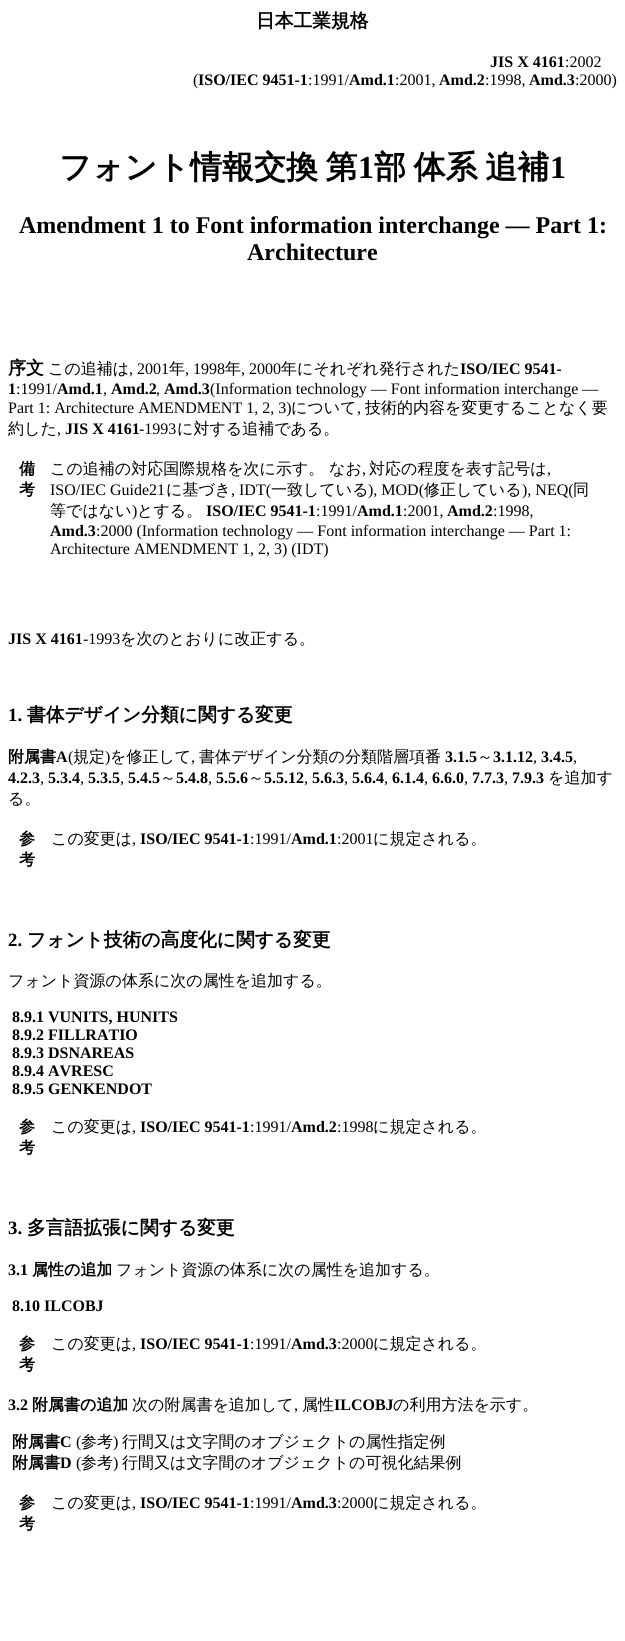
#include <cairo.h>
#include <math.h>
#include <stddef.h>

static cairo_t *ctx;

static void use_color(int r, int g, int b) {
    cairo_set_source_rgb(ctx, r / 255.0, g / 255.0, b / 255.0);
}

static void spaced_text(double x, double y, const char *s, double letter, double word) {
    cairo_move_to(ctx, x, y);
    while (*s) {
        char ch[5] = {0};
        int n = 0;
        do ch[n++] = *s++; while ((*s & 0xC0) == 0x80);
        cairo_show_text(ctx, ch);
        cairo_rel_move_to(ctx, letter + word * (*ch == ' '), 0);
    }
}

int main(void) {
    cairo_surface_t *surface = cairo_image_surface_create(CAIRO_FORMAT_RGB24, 625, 1641);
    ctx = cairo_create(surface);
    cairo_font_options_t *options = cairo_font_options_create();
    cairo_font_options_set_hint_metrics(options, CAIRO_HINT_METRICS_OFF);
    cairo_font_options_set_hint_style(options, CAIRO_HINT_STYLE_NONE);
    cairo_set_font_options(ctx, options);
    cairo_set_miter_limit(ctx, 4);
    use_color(255, 255, 255);
    cairo_paint(ctx);
    cairo_select_font_face(ctx, "WenQuanYi Zen Hei", CAIRO_FONT_SLANT_NORMAL, CAIRO_FONT_WEIGHT_BOLD);
    cairo_set_font_size(ctx, 18.75);
    use_color(0, 0, 0);
    cairo_move_to(ctx, 256, 27);
    cairo_show_text(ctx, "日本工業規格");
    cairo_select_font_face(ctx, "Liberation Serif", CAIRO_FONT_SLANT_NORMAL, CAIRO_FONT_WEIGHT_BOLD);
    cairo_set_font_size(ctx, 16);
    cairo_move_to(ctx, 490, 67);
    cairo_show_text(ctx, "JIS X 4161");
    cairo_select_font_face(ctx, "Liberation Serif", CAIRO_FONT_SLANT_NORMAL, CAIRO_FONT_WEIGHT_NORMAL);
    cairo_move_to(ctx, 565, 67);
    cairo_show_text(ctx, ":2002");
    cairo_move_to(ctx, 193, 85);
    cairo_show_text(ctx, "(");
    cairo_select_font_face(ctx, "Liberation Serif", CAIRO_FONT_SLANT_NORMAL, CAIRO_FONT_WEIGHT_BOLD);
    cairo_move_to(ctx, 198, 85);
    cairo_show_text(ctx, "ISO/IEC 9451-1");
    cairo_select_font_face(ctx, "Liberation Serif", CAIRO_FONT_SLANT_NORMAL, CAIRO_FONT_WEIGHT_NORMAL);
    cairo_move_to(ctx, 308, 85);
    cairo_show_text(ctx, ":1991/");
    cairo_select_font_face(ctx, "Liberation Serif", CAIRO_FONT_SLANT_NORMAL, CAIRO_FONT_WEIGHT_BOLD);
    cairo_move_to(ctx, 349, 85);
    cairo_show_text(ctx, "Amd.1");
    cairo_select_font_face(ctx, "Liberation Serif", CAIRO_FONT_SLANT_NORMAL, CAIRO_FONT_WEIGHT_NORMAL);
    cairo_move_to(ctx, 395, 85);
    cairo_show_text(ctx, ":2001,");
    cairo_select_font_face(ctx, "Liberation Serif", CAIRO_FONT_SLANT_NORMAL, CAIRO_FONT_WEIGHT_BOLD);
    cairo_move_to(ctx, 439, 85);
    cairo_show_text(ctx, "Amd.2");
    cairo_select_font_face(ctx, "Liberation Serif", CAIRO_FONT_SLANT_NORMAL, CAIRO_FONT_WEIGHT_NORMAL);
    cairo_move_to(ctx, 485, 85);
    cairo_show_text(ctx, ":1998,");
    cairo_select_font_face(ctx, "Liberation Serif", CAIRO_FONT_SLANT_NORMAL, CAIRO_FONT_WEIGHT_BOLD);
    cairo_move_to(ctx, 529, 85);
    cairo_show_text(ctx, "Amd.3");
    cairo_select_font_face(ctx, "Liberation Serif", CAIRO_FONT_SLANT_NORMAL, CAIRO_FONT_WEIGHT_NORMAL);
    cairo_move_to(ctx, 575, 85);
    cairo_show_text(ctx, ":2000)");
    cairo_select_font_face(ctx, "WenQuanYi Zen Hei", CAIRO_FONT_SLANT_NORMAL, CAIRO_FONT_WEIGHT_BOLD);
    cairo_set_font_size(ctx, 32);
    spaced_text(59, 178, "フォント情報交換 第", 0, -2);
    cairo_select_font_face(ctx, "Liberation Serif", CAIRO_FONT_SLANT_NORMAL, CAIRO_FONT_WEIGHT_BOLD);
    cairo_move_to(ctx, 358, 178);
    cairo_show_text(ctx, "1");
    cairo_select_font_face(ctx, "WenQuanYi Zen Hei", CAIRO_FONT_SLANT_NORMAL, CAIRO_FONT_WEIGHT_BOLD);
    spaced_text(374, 178, "部 体系 追補", 0, -2);
    cairo_select_font_face(ctx, "Liberation Serif", CAIRO_FONT_SLANT_NORMAL, CAIRO_FONT_WEIGHT_BOLD);
    cairo_move_to(ctx, 550, 178);
    cairo_show_text(ctx, "1");
    cairo_set_font_size(ctx, 24);
    cairo_move_to(ctx, 19, 233);
    cairo_show_text(ctx, "Amendment 1 to Font information interchange — Part 1:");
    cairo_move_to(ctx, 247, 260);
    cairo_show_text(ctx, "Architecture");
    cairo_select_font_face(ctx, "WenQuanYi Zen Hei", CAIRO_FONT_SLANT_NORMAL, CAIRO_FONT_WEIGHT_BOLD);
    cairo_set_font_size(ctx, 18);
    cairo_move_to(ctx, 8, 374);
    cairo_show_text(ctx, "序文");
    cairo_select_font_face(ctx, "WenQuanYi Zen Hei Medium", CAIRO_FONT_SLANT_NORMAL, CAIRO_FONT_WEIGHT_NORMAL);
    cairo_set_font_size(ctx, 16);
    cairo_move_to(ctx, 48, 374);
    cairo_show_text(ctx, "この追補は");
    cairo_select_font_face(ctx, "Liberation Serif", CAIRO_FONT_SLANT_NORMAL, CAIRO_FONT_WEIGHT_NORMAL);
    cairo_move_to(ctx, 129, 374);
    cairo_show_text(ctx, ", 2001");
    cairo_select_font_face(ctx, "WenQuanYi Zen Hei Medium", CAIRO_FONT_SLANT_NORMAL, CAIRO_FONT_WEIGHT_NORMAL);
    cairo_move_to(ctx, 169, 374);
    cairo_show_text(ctx, "年");
    cairo_select_font_face(ctx, "Liberation Serif", CAIRO_FONT_SLANT_NORMAL, CAIRO_FONT_WEIGHT_NORMAL);
    cairo_move_to(ctx, 185, 374);
    cairo_show_text(ctx, ", 1998");
    cairo_select_font_face(ctx, "WenQuanYi Zen Hei Medium", CAIRO_FONT_SLANT_NORMAL, CAIRO_FONT_WEIGHT_NORMAL);
    cairo_move_to(ctx, 225, 374);
    cairo_show_text(ctx, "年");
    cairo_select_font_face(ctx, "Liberation Serif", CAIRO_FONT_SLANT_NORMAL, CAIRO_FONT_WEIGHT_NORMAL);
    cairo_move_to(ctx, 241, 374);
    cairo_show_text(ctx, ", 2000");
    cairo_select_font_face(ctx, "WenQuanYi Zen Hei Medium", CAIRO_FONT_SLANT_NORMAL, CAIRO_FONT_WEIGHT_NORMAL);
    cairo_move_to(ctx, 281, 374);
    cairo_show_text(ctx, "年にそれぞれ発行された");
    cairo_select_font_face(ctx, "Liberation Serif", CAIRO_FONT_SLANT_NORMAL, CAIRO_FONT_WEIGHT_BOLD);
    cairo_move_to(ctx, 460, 374);
    cairo_show_text(ctx, "ISO/IEC 9541-");
    cairo_move_to(ctx, 8, 394);
    cairo_show_text(ctx, "1");
    cairo_select_font_face(ctx, "Liberation Serif", CAIRO_FONT_SLANT_NORMAL, CAIRO_FONT_WEIGHT_NORMAL);
    cairo_move_to(ctx, 16, 394);
    cairo_show_text(ctx, ":1991/");
    cairo_select_font_face(ctx, "Liberation Serif", CAIRO_FONT_SLANT_NORMAL, CAIRO_FONT_WEIGHT_BOLD);
    cairo_move_to(ctx, 57, 394);
    cairo_show_text(ctx, "Amd.1");
    cairo_select_font_face(ctx, "Liberation Serif", CAIRO_FONT_SLANT_NORMAL, CAIRO_FONT_WEIGHT_NORMAL);
    cairo_move_to(ctx, 103, 394);
    cairo_show_text(ctx, ",");
    cairo_select_font_face(ctx, "Liberation Serif", CAIRO_FONT_SLANT_NORMAL, CAIRO_FONT_WEIGHT_BOLD);
    cairo_move_to(ctx, 111, 394);
    cairo_show_text(ctx, "Amd.2");
    cairo_select_font_face(ctx, "Liberation Serif", CAIRO_FONT_SLANT_NORMAL, CAIRO_FONT_WEIGHT_NORMAL);
    cairo_move_to(ctx, 156, 394);
    cairo_show_text(ctx, ",");
    cairo_select_font_face(ctx, "Liberation Serif", CAIRO_FONT_SLANT_NORMAL, CAIRO_FONT_WEIGHT_BOLD);
    cairo_move_to(ctx, 164, 394);
    cairo_show_text(ctx, "Amd.3");
    cairo_select_font_face(ctx, "Liberation Serif", CAIRO_FONT_SLANT_NORMAL, CAIRO_FONT_WEIGHT_NORMAL);
    cairo_move_to(ctx, 210, 394);
    cairo_show_text(ctx, "(Information technology — Font information interchange —");
    cairo_move_to(ctx, 8, 413);
    cairo_show_text(ctx, "Part 1: Architecture AMENDMENT 1, 2, 3)");
    cairo_select_font_face(ctx, "WenQuanYi Zen Hei Medium", CAIRO_FONT_SLANT_NORMAL, CAIRO_FONT_WEIGHT_NORMAL);
    cairo_move_to(ctx, 291, 413);
    cairo_show_text(ctx, "について");
    cairo_select_font_face(ctx, "Liberation Serif", CAIRO_FONT_SLANT_NORMAL, CAIRO_FONT_WEIGHT_NORMAL);
    cairo_move_to(ctx, 357, 413);
    cairo_show_text(ctx, ",");
    cairo_select_font_face(ctx, "WenQuanYi Zen Hei Medium", CAIRO_FONT_SLANT_NORMAL, CAIRO_FONT_WEIGHT_NORMAL);
    cairo_move_to(ctx, 365, 413);
    cairo_show_text(ctx, "技術的内容を変更することなく要");
    cairo_move_to(ctx, 8, 434);
    cairo_show_text(ctx, "約した");
    cairo_select_font_face(ctx, "Liberation Serif", CAIRO_FONT_SLANT_NORMAL, CAIRO_FONT_WEIGHT_NORMAL);
    cairo_move_to(ctx, 57, 434);
    cairo_show_text(ctx, ",");
    cairo_select_font_face(ctx, "Liberation Serif", CAIRO_FONT_SLANT_NORMAL, CAIRO_FONT_WEIGHT_BOLD);
    cairo_move_to(ctx, 65, 434);
    cairo_show_text(ctx, "JIS X 4161");
    cairo_select_font_face(ctx, "Liberation Serif", CAIRO_FONT_SLANT_NORMAL, CAIRO_FONT_WEIGHT_NORMAL);
    cairo_move_to(ctx, 139, 434);
    cairo_show_text(ctx, "-1993");
    cairo_select_font_face(ctx, "WenQuanYi Zen Hei Medium", CAIRO_FONT_SLANT_NORMAL, CAIRO_FONT_WEIGHT_NORMAL);
    cairo_move_to(ctx, 177, 434);
    cairo_show_text(ctx, "に対する追補である。");
    cairo_select_font_face(ctx, "WenQuanYi Zen Hei", CAIRO_FONT_SLANT_NORMAL, CAIRO_FONT_WEIGHT_BOLD);
    cairo_move_to(ctx, 19, 474);
    cairo_show_text(ctx, "備");
    cairo_move_to(ctx, 19, 495);
    cairo_show_text(ctx, "考");
    cairo_select_font_face(ctx, "WenQuanYi Zen Hei Medium", CAIRO_FONT_SLANT_NORMAL, CAIRO_FONT_WEIGHT_NORMAL);
    cairo_move_to(ctx, 50, 474);
    cairo_show_text(ctx, "この追補の対応国際規格を次に示す。 なお");
    cairo_select_font_face(ctx, "Liberation Serif", CAIRO_FONT_SLANT_NORMAL, CAIRO_FONT_WEIGHT_NORMAL);
    cairo_move_to(ctx, 362, 474);
    cairo_show_text(ctx, ",");
    cairo_select_font_face(ctx, "WenQuanYi Zen Hei Medium", CAIRO_FONT_SLANT_NORMAL, CAIRO_FONT_WEIGHT_NORMAL);
    cairo_move_to(ctx, 369, 474);
    cairo_show_text(ctx, "対応の程度を表す記号は");
    cairo_select_font_face(ctx, "Liberation Serif", CAIRO_FONT_SLANT_NORMAL, CAIRO_FONT_WEIGHT_NORMAL);
    cairo_move_to(ctx, 547, 474);
    cairo_show_text(ctx, ",");
    cairo_move_to(ctx, 50, 495);
    cairo_show_text(ctx, "ISO/IEC Guide21");
    cairo_select_font_face(ctx, "WenQuanYi Zen Hei Medium", CAIRO_FONT_SLANT_NORMAL, CAIRO_FONT_WEIGHT_NORMAL);
    cairo_move_to(ctx, 166, 495);
    cairo_show_text(ctx, "に基づき");
    cairo_select_font_face(ctx, "Liberation Serif", CAIRO_FONT_SLANT_NORMAL, CAIRO_FONT_WEIGHT_NORMAL);
    cairo_move_to(ctx, 231, 495);
    cairo_show_text(ctx, ", IDT(");
    cairo_select_font_face(ctx, "WenQuanYi Zen Hei Medium", CAIRO_FONT_SLANT_NORMAL, CAIRO_FONT_WEIGHT_NORMAL);
    cairo_move_to(ctx, 271, 495);
    cairo_show_text(ctx, "一致している");
    cairo_select_font_face(ctx, "Liberation Serif", CAIRO_FONT_SLANT_NORMAL, CAIRO_FONT_WEIGHT_NORMAL);
    cairo_move_to(ctx, 368, 495);
    cairo_show_text(ctx, "), MOD(");
    cairo_select_font_face(ctx, "WenQuanYi Zen Hei Medium", CAIRO_FONT_SLANT_NORMAL, CAIRO_FONT_WEIGHT_NORMAL);
    cairo_move_to(ctx, 424, 495);
    cairo_show_text(ctx, "修正している");
    cairo_select_font_face(ctx, "Liberation Serif", CAIRO_FONT_SLANT_NORMAL, CAIRO_FONT_WEIGHT_NORMAL);
    cairo_move_to(ctx, 522, 495);
    cairo_show_text(ctx, "), NEQ(");
    cairo_select_font_face(ctx, "WenQuanYi Zen Hei Medium", CAIRO_FONT_SLANT_NORMAL, CAIRO_FONT_WEIGHT_NORMAL);
    cairo_move_to(ctx, 573, 495);
    cairo_show_text(ctx, "同");
    cairo_move_to(ctx, 50, 516);
    cairo_show_text(ctx, "等ではない");
    cairo_select_font_face(ctx, "Liberation Serif", CAIRO_FONT_SLANT_NORMAL, CAIRO_FONT_WEIGHT_NORMAL);
    cairo_move_to(ctx, 132, 516);
    cairo_show_text(ctx, ")");
    cairo_select_font_face(ctx, "WenQuanYi Zen Hei Medium", CAIRO_FONT_SLANT_NORMAL, CAIRO_FONT_WEIGHT_NORMAL);
    cairo_move_to(ctx, 137, 516);
    cairo_show_text(ctx, "とする。");
    cairo_select_font_face(ctx, "Liberation Serif", CAIRO_FONT_SLANT_NORMAL, CAIRO_FONT_WEIGHT_BOLD);
    cairo_move_to(ctx, 206, 516);
    cairo_show_text(ctx, "ISO/IEC 9541-1");
    cairo_select_font_face(ctx, "Liberation Serif", CAIRO_FONT_SLANT_NORMAL, CAIRO_FONT_WEIGHT_NORMAL);
    cairo_move_to(ctx, 316, 516);
    cairo_show_text(ctx, ":1991/");
    cairo_select_font_face(ctx, "Liberation Serif", CAIRO_FONT_SLANT_NORMAL, CAIRO_FONT_WEIGHT_BOLD);
    cairo_move_to(ctx, 357, 516);
    cairo_show_text(ctx, "Amd.1");
    cairo_select_font_face(ctx, "Liberation Serif", CAIRO_FONT_SLANT_NORMAL, CAIRO_FONT_WEIGHT_NORMAL);
    cairo_move_to(ctx, 403, 516);
    cairo_show_text(ctx, ":2001,");
    cairo_select_font_face(ctx, "Liberation Serif", CAIRO_FONT_SLANT_NORMAL, CAIRO_FONT_WEIGHT_BOLD);
    cairo_move_to(ctx, 447, 516);
    cairo_show_text(ctx, "Amd.2");
    cairo_select_font_face(ctx, "Liberation Serif", CAIRO_FONT_SLANT_NORMAL, CAIRO_FONT_WEIGHT_NORMAL);
    cairo_move_to(ctx, 493, 516);
    cairo_show_text(ctx, ":1998,");
    cairo_select_font_face(ctx, "Liberation Serif", CAIRO_FONT_SLANT_NORMAL, CAIRO_FONT_WEIGHT_BOLD);
    cairo_move_to(ctx, 50, 536);
    cairo_show_text(ctx, "Amd.3");
    cairo_select_font_face(ctx, "Liberation Serif", CAIRO_FONT_SLANT_NORMAL, CAIRO_FONT_WEIGHT_NORMAL);
    cairo_move_to(ctx, 96, 536);
    cairo_show_text(ctx, ":2000 (Information technology — Font information interchange — Part 1:");
    cairo_move_to(ctx, 50, 554);
    cairo_show_text(ctx, "Architecture AMENDMENT 1, 2, 3) (IDT)");
    cairo_select_font_face(ctx, "Liberation Serif", CAIRO_FONT_SLANT_NORMAL, CAIRO_FONT_WEIGHT_BOLD);
    cairo_move_to(ctx, 8, 644);
    cairo_show_text(ctx, "JIS X 4161");
    cairo_select_font_face(ctx, "Liberation Serif", CAIRO_FONT_SLANT_NORMAL, CAIRO_FONT_WEIGHT_NORMAL);
    cairo_move_to(ctx, 83, 644);
    cairo_show_text(ctx, "-1993");
    cairo_select_font_face(ctx, "WenQuanYi Zen Hei Medium", CAIRO_FONT_SLANT_NORMAL, CAIRO_FONT_WEIGHT_NORMAL);
    cairo_move_to(ctx, 120, 644);
    cairo_show_text(ctx, "を次のとおりに改正する。");
    cairo_select_font_face(ctx, "Liberation Serif", CAIRO_FONT_SLANT_NORMAL, CAIRO_FONT_WEIGHT_BOLD);
    cairo_set_font_size(ctx, 18.75);
    cairo_move_to(ctx, 8, 721);
    cairo_show_text(ctx, "1.");
    cairo_select_font_face(ctx, "WenQuanYi Zen Hei", CAIRO_FONT_SLANT_NORMAL, CAIRO_FONT_WEIGHT_BOLD);
    cairo_move_to(ctx, 27, 721);
    cairo_show_text(ctx, "書体デザイン分類に関する変更");
    cairo_set_font_size(ctx, 16);
    cairo_move_to(ctx, 8, 762);
    cairo_show_text(ctx, "附属書");
    cairo_select_font_face(ctx, "Liberation Serif", CAIRO_FONT_SLANT_NORMAL, CAIRO_FONT_WEIGHT_BOLD);
    cairo_move_to(ctx, 56, 762);
    cairo_show_text(ctx, "A");
    cairo_select_font_face(ctx, "Liberation Serif", CAIRO_FONT_SLANT_NORMAL, CAIRO_FONT_WEIGHT_NORMAL);
    cairo_move_to(ctx, 68, 762);
    cairo_show_text(ctx, "(");
    cairo_select_font_face(ctx, "WenQuanYi Zen Hei Medium", CAIRO_FONT_SLANT_NORMAL, CAIRO_FONT_WEIGHT_NORMAL);
    cairo_move_to(ctx, 73, 762);
    cairo_show_text(ctx, "規定");
    cairo_select_font_face(ctx, "Liberation Serif", CAIRO_FONT_SLANT_NORMAL, CAIRO_FONT_WEIGHT_NORMAL);
    cairo_move_to(ctx, 105, 762);
    cairo_show_text(ctx, ")");
    cairo_select_font_face(ctx, "WenQuanYi Zen Hei Medium", CAIRO_FONT_SLANT_NORMAL, CAIRO_FONT_WEIGHT_NORMAL);
    cairo_move_to(ctx, 110, 762);
    cairo_show_text(ctx, "を修正して");
    cairo_move_to(ctx, 199, 762);
    cairo_show_text(ctx, "書体デザイン分類の分類階層項番");
    cairo_select_font_face(ctx, "Liberation Serif", CAIRO_FONT_SLANT_NORMAL, CAIRO_FONT_WEIGHT_BOLD);
    cairo_move_to(ctx, 445, 762);
    cairo_show_text(ctx, "3.1.5");
    cairo_select_font_face(ctx, "WenQuanYi Zen Hei Medium", CAIRO_FONT_SLANT_NORMAL, CAIRO_FONT_WEIGHT_NORMAL);
    cairo_move_to(ctx, 477, 762);
    cairo_show_text(ctx, "～");
    cairo_select_font_face(ctx, "Liberation Serif", CAIRO_FONT_SLANT_NORMAL, CAIRO_FONT_WEIGHT_BOLD);
    cairo_move_to(ctx, 493, 762);
    cairo_show_text(ctx, "3.1.12");
    cairo_move_to(ctx, 541, 762);
    cairo_show_text(ctx, "3.4.5");
    cairo_select_font_face(ctx, "Liberation Serif", CAIRO_FONT_SLANT_NORMAL, CAIRO_FONT_WEIGHT_NORMAL);
    cairo_move_to(ctx, 191, 762);
    cairo_show_text(ctx, ",");
    cairo_move_to(ctx, 533, 762);
    cairo_show_text(ctx, ",");
    cairo_move_to(ctx, 573, 762);
    cairo_show_text(ctx, ",");
    cairo_select_font_face(ctx, "Liberation Serif", CAIRO_FONT_SLANT_NORMAL, CAIRO_FONT_WEIGHT_BOLD);
    cairo_move_to(ctx, 8, 783);
    cairo_show_text(ctx, "4.2.3");
    cairo_move_to(ctx, 48, 783);
    cairo_show_text(ctx, "5.3.4");
    cairo_move_to(ctx, 88, 783);
    cairo_show_text(ctx, "5.3.5");
    cairo_move_to(ctx, 128, 783);
    cairo_show_text(ctx, "5.4.5");
    cairo_select_font_face(ctx, "WenQuanYi Zen Hei Medium", CAIRO_FONT_SLANT_NORMAL, CAIRO_FONT_WEIGHT_NORMAL);
    cairo_move_to(ctx, 160, 783);
    cairo_show_text(ctx, "～");
    cairo_select_font_face(ctx, "Liberation Serif", CAIRO_FONT_SLANT_NORMAL, CAIRO_FONT_WEIGHT_BOLD);
    cairo_move_to(ctx, 176, 783);
    cairo_show_text(ctx, "5.4.8");
    cairo_move_to(ctx, 216, 783);
    cairo_show_text(ctx, "5.5.6");
    cairo_select_font_face(ctx, "WenQuanYi Zen Hei Medium", CAIRO_FONT_SLANT_NORMAL, CAIRO_FONT_WEIGHT_NORMAL);
    cairo_move_to(ctx, 248, 783);
    cairo_show_text(ctx, "～");
    cairo_select_font_face(ctx, "Liberation Serif", CAIRO_FONT_SLANT_NORMAL, CAIRO_FONT_WEIGHT_BOLD);
    cairo_move_to(ctx, 264, 783);
    cairo_show_text(ctx, "5.5.12");
    cairo_move_to(ctx, 312, 783);
    cairo_show_text(ctx, "5.6.3");
    cairo_move_to(ctx, 352, 783);
    cairo_show_text(ctx, "5.6.4");
    cairo_move_to(ctx, 392, 783);
    cairo_show_text(ctx, "6.1.4");
    cairo_move_to(ctx, 432, 783);
    cairo_show_text(ctx, "6.6.0");
    cairo_move_to(ctx, 472, 783);
    cairo_show_text(ctx, "7.7.3");
    cairo_move_to(ctx, 512, 783);
    cairo_show_text(ctx, "7.9.3");
    cairo_select_font_face(ctx, "WenQuanYi Zen Hei Medium", CAIRO_FONT_SLANT_NORMAL, CAIRO_FONT_WEIGHT_NORMAL);
    cairo_move_to(ctx, 548, 783);
    cairo_show_text(ctx, "を追加す");
    cairo_select_font_face(ctx, "Liberation Serif", CAIRO_FONT_SLANT_NORMAL, CAIRO_FONT_WEIGHT_NORMAL);
    cairo_move_to(ctx, 40, 783);
    cairo_show_text(ctx, ",");
    cairo_move_to(ctx, 80, 783);
    cairo_show_text(ctx, ",");
    cairo_move_to(ctx, 120, 783);
    cairo_show_text(ctx, ",");
    cairo_move_to(ctx, 208, 783);
    cairo_show_text(ctx, ",");
    cairo_move_to(ctx, 304, 783);
    cairo_show_text(ctx, ",");
    cairo_move_to(ctx, 344, 783);
    cairo_show_text(ctx, ",");
    cairo_move_to(ctx, 384, 783);
    cairo_show_text(ctx, ",");
    cairo_move_to(ctx, 424, 783);
    cairo_show_text(ctx, ",");
    cairo_move_to(ctx, 464, 783);
    cairo_show_text(ctx, ",");
    cairo_move_to(ctx, 504, 783);
    cairo_show_text(ctx, ",");
    cairo_select_font_face(ctx, "WenQuanYi Zen Hei Medium", CAIRO_FONT_SLANT_NORMAL, CAIRO_FONT_WEIGHT_NORMAL);
    cairo_move_to(ctx, 8, 804);
    cairo_show_text(ctx, "る。");
    cairo_select_font_face(ctx, "WenQuanYi Zen Hei", CAIRO_FONT_SLANT_NORMAL, CAIRO_FONT_WEIGHT_BOLD);
    cairo_move_to(ctx, 19, 844);
    cairo_show_text(ctx, "参");
    cairo_move_to(ctx, 19, 865);
    cairo_show_text(ctx, "考");
    cairo_select_font_face(ctx, "WenQuanYi Zen Hei Medium", CAIRO_FONT_SLANT_NORMAL, CAIRO_FONT_WEIGHT_NORMAL);
    cairo_move_to(ctx, 51, 844);
    cairo_show_text(ctx, "この変更は");
    cairo_select_font_face(ctx, "Liberation Serif", CAIRO_FONT_SLANT_NORMAL, CAIRO_FONT_WEIGHT_NORMAL);
    cairo_move_to(ctx, 132, 844);
    cairo_show_text(ctx, ",");
    cairo_select_font_face(ctx, "Liberation Serif", CAIRO_FONT_SLANT_NORMAL, CAIRO_FONT_WEIGHT_BOLD);
    cairo_move_to(ctx, 140, 844);
    cairo_show_text(ctx, "ISO/IEC 9541-1");
    cairo_select_font_face(ctx, "Liberation Serif", CAIRO_FONT_SLANT_NORMAL, CAIRO_FONT_WEIGHT_NORMAL);
    cairo_move_to(ctx, 250, 844);
    cairo_show_text(ctx, ":1991/");
    cairo_select_font_face(ctx, "Liberation Serif", CAIRO_FONT_SLANT_NORMAL, CAIRO_FONT_WEIGHT_BOLD);
    cairo_move_to(ctx, 291, 844);
    cairo_show_text(ctx, "Amd.1");
    cairo_select_font_face(ctx, "Liberation Serif", CAIRO_FONT_SLANT_NORMAL, CAIRO_FONT_WEIGHT_NORMAL);
    cairo_move_to(ctx, 337, 844);
    cairo_show_text(ctx, ":2001");
    cairo_select_font_face(ctx, "WenQuanYi Zen Hei Medium", CAIRO_FONT_SLANT_NORMAL, CAIRO_FONT_WEIGHT_NORMAL);
    cairo_move_to(ctx, 373, 844);
    cairo_show_text(ctx, "に規定される。");
    cairo_select_font_face(ctx, "Liberation Serif", CAIRO_FONT_SLANT_NORMAL, CAIRO_FONT_WEIGHT_BOLD);
    cairo_set_font_size(ctx, 18.75);
    cairo_move_to(ctx, 8, 946);
    cairo_show_text(ctx, "2.");
    cairo_select_font_face(ctx, "WenQuanYi Zen Hei", CAIRO_FONT_SLANT_NORMAL, CAIRO_FONT_WEIGHT_BOLD);
    cairo_move_to(ctx, 27, 946);
    cairo_show_text(ctx, "フォント技術の高度化に関する変更");
    cairo_select_font_face(ctx, "WenQuanYi Zen Hei Medium", CAIRO_FONT_SLANT_NORMAL, CAIRO_FONT_WEIGHT_NORMAL);
    cairo_set_font_size(ctx, 16);
    cairo_move_to(ctx, 8, 986);
    cairo_show_text(ctx, "フォント資源の体系に次の属性を追加する。");
    cairo_select_font_face(ctx, "Liberation Serif", CAIRO_FONT_SLANT_NORMAL, CAIRO_FONT_WEIGHT_BOLD);
    cairo_move_to(ctx, 12, 1022);
    cairo_show_text(ctx, "8.9.1 VUNITS, HUNITS");
    cairo_move_to(ctx, 12, 1040);
    cairo_show_text(ctx, "8.9.2 FILLRATIO");
    cairo_move_to(ctx, 12, 1058);
    cairo_show_text(ctx, "8.9.3 DSNAREAS");
    cairo_move_to(ctx, 12, 1076);
    cairo_show_text(ctx, "8.9.4 AVRESC");
    cairo_move_to(ctx, 12, 1094);
    cairo_show_text(ctx, "8.9.5 GENKENDOT");
    cairo_select_font_face(ctx, "WenQuanYi Zen Hei", CAIRO_FONT_SLANT_NORMAL, CAIRO_FONT_WEIGHT_BOLD);
    cairo_move_to(ctx, 19, 1132);
    cairo_show_text(ctx, "参");
    cairo_move_to(ctx, 19, 1153);
    cairo_show_text(ctx, "考");
    cairo_select_font_face(ctx, "WenQuanYi Zen Hei Medium", CAIRO_FONT_SLANT_NORMAL, CAIRO_FONT_WEIGHT_NORMAL);
    cairo_move_to(ctx, 51, 1132);
    cairo_show_text(ctx, "この変更は");
    cairo_select_font_face(ctx, "Liberation Serif", CAIRO_FONT_SLANT_NORMAL, CAIRO_FONT_WEIGHT_NORMAL);
    cairo_move_to(ctx, 132, 1132);
    cairo_show_text(ctx, ",");
    cairo_select_font_face(ctx, "Liberation Serif", CAIRO_FONT_SLANT_NORMAL, CAIRO_FONT_WEIGHT_BOLD);
    cairo_move_to(ctx, 140, 1132);
    cairo_show_text(ctx, "ISO/IEC 9541-1");
    cairo_select_font_face(ctx, "Liberation Serif", CAIRO_FONT_SLANT_NORMAL, CAIRO_FONT_WEIGHT_NORMAL);
    cairo_move_to(ctx, 250, 1132);
    cairo_show_text(ctx, ":1991/");
    cairo_select_font_face(ctx, "Liberation Serif", CAIRO_FONT_SLANT_NORMAL, CAIRO_FONT_WEIGHT_BOLD);
    cairo_move_to(ctx, 291, 1132);
    cairo_show_text(ctx, "Amd.2");
    cairo_select_font_face(ctx, "Liberation Serif", CAIRO_FONT_SLANT_NORMAL, CAIRO_FONT_WEIGHT_NORMAL);
    cairo_move_to(ctx, 337, 1132);
    cairo_show_text(ctx, ":1998");
    cairo_select_font_face(ctx, "WenQuanYi Zen Hei Medium", CAIRO_FONT_SLANT_NORMAL, CAIRO_FONT_WEIGHT_NORMAL);
    cairo_move_to(ctx, 373, 1132);
    cairo_show_text(ctx, "に規定される。");
    cairo_select_font_face(ctx, "Liberation Serif", CAIRO_FONT_SLANT_NORMAL, CAIRO_FONT_WEIGHT_BOLD);
    cairo_set_font_size(ctx, 18.75);
    cairo_move_to(ctx, 8, 1234);
    cairo_show_text(ctx, "3.");
    cairo_select_font_face(ctx, "WenQuanYi Zen Hei", CAIRO_FONT_SLANT_NORMAL, CAIRO_FONT_WEIGHT_BOLD);
    cairo_move_to(ctx, 27, 1234);
    cairo_show_text(ctx, "多言語拡張に関する変更");
    cairo_select_font_face(ctx, "Liberation Serif", CAIRO_FONT_SLANT_NORMAL, CAIRO_FONT_WEIGHT_BOLD);
    cairo_set_font_size(ctx, 16);
    cairo_move_to(ctx, 8, 1275);
    cairo_show_text(ctx, "3.1");
    cairo_select_font_face(ctx, "WenQuanYi Zen Hei", CAIRO_FONT_SLANT_NORMAL, CAIRO_FONT_WEIGHT_BOLD);
    cairo_move_to(ctx, 32, 1275);
    cairo_show_text(ctx, "属性の追加");
    cairo_select_font_face(ctx, "WenQuanYi Zen Hei Medium", CAIRO_FONT_SLANT_NORMAL, CAIRO_FONT_WEIGHT_NORMAL);
    cairo_move_to(ctx, 116, 1275);
    cairo_show_text(ctx, "フォント資源の体系に次の属性を追加する。");
    cairo_select_font_face(ctx, "Liberation Serif", CAIRO_FONT_SLANT_NORMAL, CAIRO_FONT_WEIGHT_BOLD);
    cairo_move_to(ctx, 12, 1311);
    cairo_show_text(ctx, "8.10 ILCOBJ");
    cairo_select_font_face(ctx, "WenQuanYi Zen Hei", CAIRO_FONT_SLANT_NORMAL, CAIRO_FONT_WEIGHT_BOLD);
    cairo_move_to(ctx, 19, 1349);
    cairo_show_text(ctx, "参");
    cairo_move_to(ctx, 19, 1370);
    cairo_show_text(ctx, "考");
    cairo_select_font_face(ctx, "WenQuanYi Zen Hei Medium", CAIRO_FONT_SLANT_NORMAL, CAIRO_FONT_WEIGHT_NORMAL);
    cairo_move_to(ctx, 51, 1349);
    cairo_show_text(ctx, "この変更は");
    cairo_select_font_face(ctx, "Liberation Serif", CAIRO_FONT_SLANT_NORMAL, CAIRO_FONT_WEIGHT_NORMAL);
    cairo_move_to(ctx, 132, 1349);
    cairo_show_text(ctx, ",");
    cairo_select_font_face(ctx, "Liberation Serif", CAIRO_FONT_SLANT_NORMAL, CAIRO_FONT_WEIGHT_BOLD);
    cairo_move_to(ctx, 140, 1349);
    cairo_show_text(ctx, "ISO/IEC 9541-1");
    cairo_select_font_face(ctx, "Liberation Serif", CAIRO_FONT_SLANT_NORMAL, CAIRO_FONT_WEIGHT_NORMAL);
    cairo_move_to(ctx, 250, 1349);
    cairo_show_text(ctx, ":1991/");
    cairo_select_font_face(ctx, "Liberation Serif", CAIRO_FONT_SLANT_NORMAL, CAIRO_FONT_WEIGHT_BOLD);
    cairo_move_to(ctx, 291, 1349);
    cairo_show_text(ctx, "Amd.3");
    cairo_select_font_face(ctx, "Liberation Serif", CAIRO_FONT_SLANT_NORMAL, CAIRO_FONT_WEIGHT_NORMAL);
    cairo_move_to(ctx, 337, 1349);
    cairo_show_text(ctx, ":2000");
    cairo_select_font_face(ctx, "WenQuanYi Zen Hei Medium", CAIRO_FONT_SLANT_NORMAL, CAIRO_FONT_WEIGHT_NORMAL);
    cairo_move_to(ctx, 373, 1349);
    cairo_show_text(ctx, "に規定される。");
    cairo_select_font_face(ctx, "Liberation Serif", CAIRO_FONT_SLANT_NORMAL, CAIRO_FONT_WEIGHT_BOLD);
    cairo_move_to(ctx, 8, 1410);
    cairo_show_text(ctx, "3.2");
    cairo_select_font_face(ctx, "WenQuanYi Zen Hei", CAIRO_FONT_SLANT_NORMAL, CAIRO_FONT_WEIGHT_BOLD);
    cairo_move_to(ctx, 32, 1410);
    cairo_show_text(ctx, "附属書の追加");
    cairo_select_font_face(ctx, "WenQuanYi Zen Hei Medium", CAIRO_FONT_SLANT_NORMAL, CAIRO_FONT_WEIGHT_NORMAL);
    cairo_move_to(ctx, 132, 1410);
    cairo_show_text(ctx, "次の附属書を追加して");
    cairo_select_font_face(ctx, "Liberation Serif", CAIRO_FONT_SLANT_NORMAL, CAIRO_FONT_WEIGHT_NORMAL);
    cairo_move_to(ctx, 294, 1410);
    cairo_show_text(ctx, ",");
    cairo_select_font_face(ctx, "WenQuanYi Zen Hei Medium", CAIRO_FONT_SLANT_NORMAL, CAIRO_FONT_WEIGHT_NORMAL);
    cairo_move_to(ctx, 302, 1410);
    cairo_show_text(ctx, "属性");
    cairo_select_font_face(ctx, "Liberation Serif", CAIRO_FONT_SLANT_NORMAL, CAIRO_FONT_WEIGHT_BOLD);
    cairo_move_to(ctx, 334, 1410);
    cairo_show_text(ctx, "ILCOBJ");
    cairo_select_font_face(ctx, "WenQuanYi Zen Hei Medium", CAIRO_FONT_SLANT_NORMAL, CAIRO_FONT_WEIGHT_NORMAL);
    cairo_move_to(ctx, 393, 1410);
    cairo_show_text(ctx, "の利用方法を示す。");
    cairo_select_font_face(ctx, "WenQuanYi Zen Hei", CAIRO_FONT_SLANT_NORMAL, CAIRO_FONT_WEIGHT_BOLD);
    cairo_move_to(ctx, 12, 1447);
    cairo_show_text(ctx, "附属書");
    cairo_select_font_face(ctx, "Liberation Serif", CAIRO_FONT_SLANT_NORMAL, CAIRO_FONT_WEIGHT_BOLD);
    cairo_move_to(ctx, 60, 1447);
    cairo_show_text(ctx, "C");
    cairo_select_font_face(ctx, "Liberation Serif", CAIRO_FONT_SLANT_NORMAL, CAIRO_FONT_WEIGHT_NORMAL);
    cairo_move_to(ctx, 76, 1447);
    cairo_show_text(ctx, "(");
    cairo_select_font_face(ctx, "WenQuanYi Zen Hei Medium", CAIRO_FONT_SLANT_NORMAL, CAIRO_FONT_WEIGHT_NORMAL);
    cairo_move_to(ctx, 81, 1447);
    cairo_show_text(ctx, "参考");
    cairo_select_font_face(ctx, "Liberation Serif", CAIRO_FONT_SLANT_NORMAL, CAIRO_FONT_WEIGHT_NORMAL);
    cairo_move_to(ctx, 113, 1447);
    cairo_show_text(ctx, ")");
    cairo_select_font_face(ctx, "WenQuanYi Zen Hei Medium", CAIRO_FONT_SLANT_NORMAL, CAIRO_FONT_WEIGHT_NORMAL);
    cairo_move_to(ctx, 122, 1447);
    cairo_show_text(ctx, "行間又は文字間のオブジェクトの属性指定例");
    cairo_select_font_face(ctx, "WenQuanYi Zen Hei", CAIRO_FONT_SLANT_NORMAL, CAIRO_FONT_WEIGHT_BOLD);
    cairo_move_to(ctx, 12, 1468);
    cairo_show_text(ctx, "附属書");
    cairo_select_font_face(ctx, "Liberation Serif", CAIRO_FONT_SLANT_NORMAL, CAIRO_FONT_WEIGHT_BOLD);
    cairo_move_to(ctx, 60, 1468);
    cairo_show_text(ctx, "D");
    cairo_select_font_face(ctx, "Liberation Serif", CAIRO_FONT_SLANT_NORMAL, CAIRO_FONT_WEIGHT_NORMAL);
    cairo_move_to(ctx, 76, 1468);
    cairo_show_text(ctx, "(");
    cairo_select_font_face(ctx, "WenQuanYi Zen Hei Medium", CAIRO_FONT_SLANT_NORMAL, CAIRO_FONT_WEIGHT_NORMAL);
    cairo_move_to(ctx, 81, 1468);
    cairo_show_text(ctx, "参考");
    cairo_select_font_face(ctx, "Liberation Serif", CAIRO_FONT_SLANT_NORMAL, CAIRO_FONT_WEIGHT_NORMAL);
    cairo_move_to(ctx, 113, 1468);
    cairo_show_text(ctx, ")");
    cairo_select_font_face(ctx, "WenQuanYi Zen Hei Medium", CAIRO_FONT_SLANT_NORMAL, CAIRO_FONT_WEIGHT_NORMAL);
    cairo_move_to(ctx, 122, 1468);
    cairo_show_text(ctx, "行間又は文字間のオブジェクトの可視化結果例");
    cairo_select_font_face(ctx, "WenQuanYi Zen Hei", CAIRO_FONT_SLANT_NORMAL, CAIRO_FONT_WEIGHT_BOLD);
    cairo_move_to(ctx, 19, 1508);
    cairo_show_text(ctx, "参");
    cairo_move_to(ctx, 19, 1529);
    cairo_show_text(ctx, "考");
    cairo_select_font_face(ctx, "WenQuanYi Zen Hei Medium", CAIRO_FONT_SLANT_NORMAL, CAIRO_FONT_WEIGHT_NORMAL);
    cairo_move_to(ctx, 51, 1508);
    cairo_show_text(ctx, "この変更は");
    cairo_select_font_face(ctx, "Liberation Serif", CAIRO_FONT_SLANT_NORMAL, CAIRO_FONT_WEIGHT_NORMAL);
    cairo_move_to(ctx, 132, 1508);
    cairo_show_text(ctx, ",");
    cairo_select_font_face(ctx, "Liberation Serif", CAIRO_FONT_SLANT_NORMAL, CAIRO_FONT_WEIGHT_BOLD);
    cairo_move_to(ctx, 140, 1508);
    cairo_show_text(ctx, "ISO/IEC 9541-1");
    cairo_select_font_face(ctx, "Liberation Serif", CAIRO_FONT_SLANT_NORMAL, CAIRO_FONT_WEIGHT_NORMAL);
    cairo_move_to(ctx, 250, 1508);
    cairo_show_text(ctx, ":1991/");
    cairo_select_font_face(ctx, "Liberation Serif", CAIRO_FONT_SLANT_NORMAL, CAIRO_FONT_WEIGHT_BOLD);
    cairo_move_to(ctx, 291, 1508);
    cairo_show_text(ctx, "Amd.3");
    cairo_select_font_face(ctx, "Liberation Serif", CAIRO_FONT_SLANT_NORMAL, CAIRO_FONT_WEIGHT_NORMAL);
    cairo_move_to(ctx, 337, 1508);
    cairo_show_text(ctx, ":2000");
    cairo_select_font_face(ctx, "WenQuanYi Zen Hei Medium", CAIRO_FONT_SLANT_NORMAL, CAIRO_FONT_WEIGHT_NORMAL);
    cairo_move_to(ctx, 373, 1508);
    cairo_show_text(ctx, "に規定される。");
    cairo_surface_write_to_png(surface, "result.png");
    cairo_font_options_destroy(options);
    cairo_destroy(ctx);
    cairo_surface_destroy(surface);
    return 0;
}
